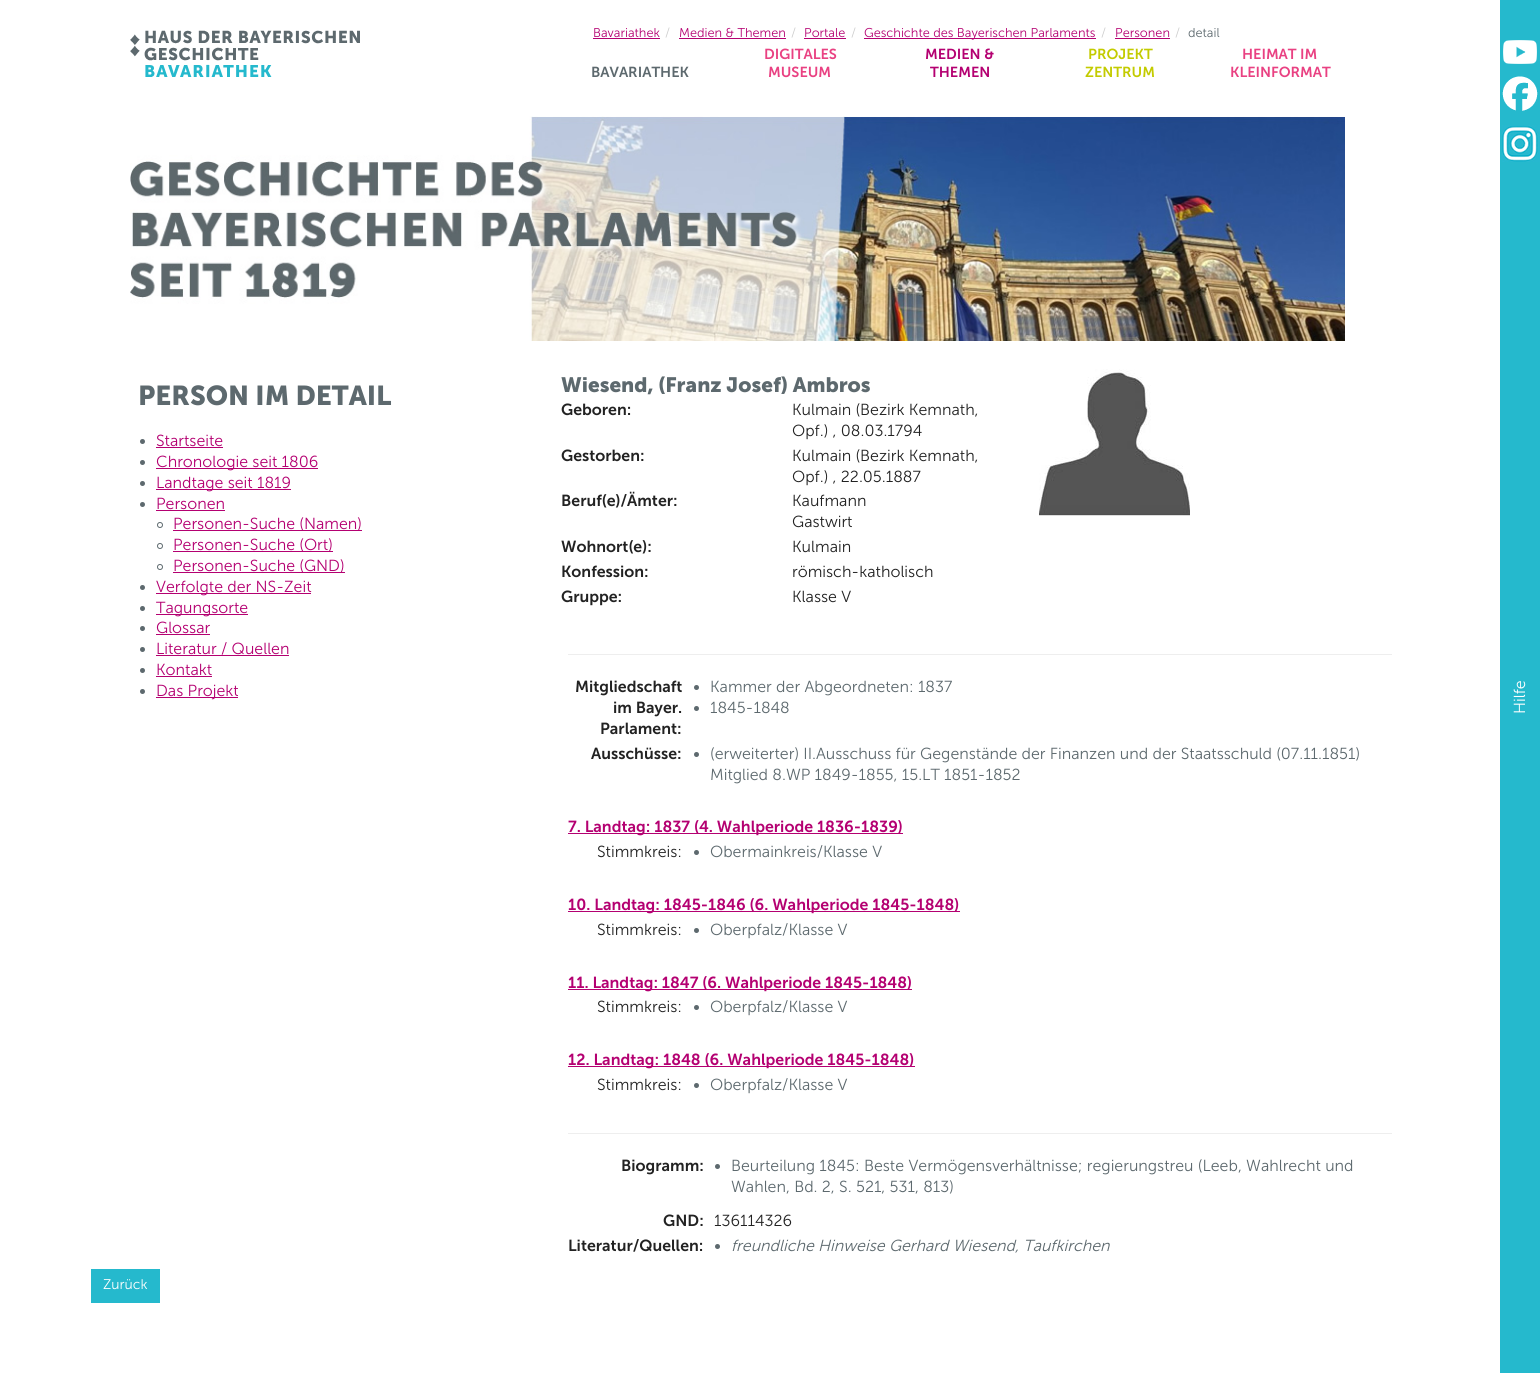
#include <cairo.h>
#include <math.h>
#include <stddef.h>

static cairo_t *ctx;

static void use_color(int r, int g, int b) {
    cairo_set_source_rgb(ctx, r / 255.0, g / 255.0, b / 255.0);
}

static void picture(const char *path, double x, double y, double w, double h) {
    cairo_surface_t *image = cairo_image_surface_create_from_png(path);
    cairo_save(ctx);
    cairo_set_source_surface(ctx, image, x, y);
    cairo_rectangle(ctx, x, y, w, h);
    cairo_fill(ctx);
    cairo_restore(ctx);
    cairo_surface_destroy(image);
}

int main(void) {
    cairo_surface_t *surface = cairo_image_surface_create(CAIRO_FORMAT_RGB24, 1540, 1373);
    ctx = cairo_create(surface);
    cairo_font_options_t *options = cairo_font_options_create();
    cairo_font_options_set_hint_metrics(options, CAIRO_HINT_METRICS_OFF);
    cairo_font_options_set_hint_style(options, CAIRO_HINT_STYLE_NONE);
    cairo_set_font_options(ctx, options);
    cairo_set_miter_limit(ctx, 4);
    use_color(255, 255, 255);
    cairo_paint(ctx);
    cairo_select_font_face(ctx, "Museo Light", CAIRO_FONT_SLANT_NORMAL, CAIRO_FONT_WEIGHT_NORMAL);
    cairo_set_font_size(ctx, 12.75);
    use_color(180, 0, 113);
    cairo_move_to(ctx, 593, 37);
    cairo_show_text(ctx, "Bavariathek");
    cairo_rectangle(ctx, 593, 38, 67, 1);
    cairo_fill(ctx);
    use_color(204, 204, 204);
    cairo_move_to(ctx, 665, 37);
    cairo_show_text(ctx, "/");
    use_color(180, 0, 113);
    cairo_move_to(ctx, 679, 37);
    cairo_show_text(ctx, "Medien & Themen");
    cairo_rectangle(ctx, 679, 38, 107, 1);
    cairo_fill(ctx);
    use_color(204, 204, 204);
    cairo_move_to(ctx, 791, 37);
    cairo_show_text(ctx, "/");
    use_color(180, 0, 113);
    cairo_move_to(ctx, 804, 37);
    cairo_show_text(ctx, "Portale");
    cairo_rectangle(ctx, 804, 38, 42, 1);
    cairo_fill(ctx);
    use_color(204, 204, 204);
    cairo_move_to(ctx, 851, 37);
    cairo_show_text(ctx, "/");
    use_color(180, 0, 113);
    cairo_rectangle(ctx, 864, 38, 232, 1);
    cairo_fill(ctx);
    cairo_move_to(ctx, 864, 37);
    cairo_show_text(ctx, "Geschichte des Bayerischen Parlaments");
    use_color(204, 204, 204);
    cairo_move_to(ctx, 1101, 37);
    cairo_show_text(ctx, "/");
    use_color(180, 0, 113);
    cairo_move_to(ctx, 1115, 37);
    cairo_show_text(ctx, "Personen");
    cairo_rectangle(ctx, 1115, 38, 55, 1);
    cairo_fill(ctx);
    use_color(204, 204, 204);
    cairo_move_to(ctx, 1175, 37);
    cairo_show_text(ctx, "/");
    use_color(93, 105, 110);
    cairo_move_to(ctx, 1188, 37);
    cairo_show_text(ctx, "detail");
    picture("img1.png", 130, 30, 230, 48);
    cairo_select_font_face(ctx, "Museo Sans SemiBold", CAIRO_FONT_SLANT_NORMAL, CAIRO_FONT_WEIGHT_NORMAL);
    cairo_set_font_size(ctx, 14.5);
    cairo_move_to(ctx, 591, 77);
    cairo_show_text(ctx, "BAVARIATHEK");
    use_color(233, 65, 130);
    cairo_move_to(ctx, 764, 59);
    cairo_show_text(ctx, "DIGITALES");
    cairo_move_to(ctx, 768, 77);
    cairo_show_text(ctx, "MUSEUM");
    use_color(180, 0, 113);
    cairo_move_to(ctx, 925, 59);
    cairo_show_text(ctx, "MEDIEN &");
    cairo_move_to(ctx, 930, 77);
    cairo_show_text(ctx, "THEMEN");
    use_color(195, 203, 0);
    cairo_move_to(ctx, 1088, 59);
    cairo_show_text(ctx, "PROJEKT");
    cairo_move_to(ctx, 1085, 77);
    cairo_show_text(ctx, "ZENTRUM");
    use_color(233, 65, 130);
    cairo_move_to(ctx, 1242, 59);
    cairo_show_text(ctx, "HEIMAT IM");
    cairo_move_to(ctx, 1230, 77);
    cairo_show_text(ctx, "KLEINFORMAT");
    use_color(37, 185, 205);
    cairo_rectangle(ctx, 1500, 0, 40, 1373);
    cairo_fill(ctx);
    picture("img2.png", 1503, 40, 34, 24);
    picture("img3.png", 1502, 76, 36, 35);
    picture("img4.png", 1502, 125, 38, 37);
    cairo_select_font_face(ctx, "Museo Light", CAIRO_FONT_SLANT_NORMAL, CAIRO_FONT_WEIGHT_NORMAL);
    cairo_set_font_size(ctx, 16);
    use_color(255, 255, 255);
    cairo_save(ctx);
    cairo_translate(ctx, 1525, 714);
    cairo_rotate(ctx, -90 * M_PI / 180);
    cairo_move_to(ctx, 0, 0);
    cairo_show_text(ctx, "Hilfe");
    cairo_restore(ctx);
    picture("img5.png", 130, 116, 1215, 225);
    cairo_select_font_face(ctx, "Museo", CAIRO_FONT_SLANT_NORMAL, CAIRO_FONT_WEIGHT_BOLD);
    cairo_set_font_size(ctx, 20.75);
    use_color(93, 105, 110);
    cairo_move_to(ctx, 561, 392);
    cairo_show_text(ctx, "Wiesend, (Franz Josef) Ambros");
    cairo_select_font_face(ctx, "Museo Sans SemiBold", CAIRO_FONT_SLANT_NORMAL, CAIRO_FONT_WEIGHT_NORMAL);
    cairo_set_font_size(ctx, 16);
    use_color(34, 34, 34);
    cairo_move_to(ctx, 561, 415);
    cairo_show_text(ctx, "Geboren:");
    cairo_select_font_face(ctx, "Museo Light", CAIRO_FONT_SLANT_NORMAL, CAIRO_FONT_WEIGHT_NORMAL);
    cairo_move_to(ctx, 792, 415);
    cairo_show_text(ctx, "Kulmain (Bezirk Kemnath,");
    cairo_move_to(ctx, 792, 436);
    cairo_show_text(ctx, "Opf.) , 08.03.1794");
    cairo_select_font_face(ctx, "Museo Sans SemiBold", CAIRO_FONT_SLANT_NORMAL, CAIRO_FONT_WEIGHT_NORMAL);
    cairo_move_to(ctx, 561, 461);
    cairo_show_text(ctx, "Gestorben:");
    cairo_select_font_face(ctx, "Museo Light", CAIRO_FONT_SLANT_NORMAL, CAIRO_FONT_WEIGHT_NORMAL);
    cairo_move_to(ctx, 792, 461);
    cairo_show_text(ctx, "Kulmain (Bezirk Kemnath,");
    cairo_move_to(ctx, 792, 482);
    cairo_show_text(ctx, "Opf.) , 22.05.1887");
    cairo_select_font_face(ctx, "Museo Sans SemiBold", CAIRO_FONT_SLANT_NORMAL, CAIRO_FONT_WEIGHT_NORMAL);
    cairo_move_to(ctx, 561, 506);
    cairo_show_text(ctx, "Beruf(e)/Ämter:");
    cairo_select_font_face(ctx, "Museo Light", CAIRO_FONT_SLANT_NORMAL, CAIRO_FONT_WEIGHT_NORMAL);
    cairo_move_to(ctx, 792, 506);
    cairo_show_text(ctx, "Kaufmann");
    cairo_move_to(ctx, 792, 527);
    cairo_show_text(ctx, "Gastwirt");
    cairo_select_font_face(ctx, "Museo Sans SemiBold", CAIRO_FONT_SLANT_NORMAL, CAIRO_FONT_WEIGHT_NORMAL);
    cairo_move_to(ctx, 561, 552);
    cairo_show_text(ctx, "Wohnort(e):");
    cairo_select_font_face(ctx, "Museo Light", CAIRO_FONT_SLANT_NORMAL, CAIRO_FONT_WEIGHT_NORMAL);
    cairo_move_to(ctx, 792, 552);
    cairo_show_text(ctx, "Kulmain");
    cairo_select_font_face(ctx, "Museo Sans SemiBold", CAIRO_FONT_SLANT_NORMAL, CAIRO_FONT_WEIGHT_NORMAL);
    cairo_move_to(ctx, 561, 577);
    cairo_show_text(ctx, "Konfession:");
    cairo_select_font_face(ctx, "Museo Light", CAIRO_FONT_SLANT_NORMAL, CAIRO_FONT_WEIGHT_NORMAL);
    cairo_move_to(ctx, 792, 577);
    cairo_show_text(ctx, "römisch-katholisch");
    cairo_select_font_face(ctx, "Museo Sans SemiBold", CAIRO_FONT_SLANT_NORMAL, CAIRO_FONT_WEIGHT_NORMAL);
    cairo_move_to(ctx, 561, 602);
    cairo_show_text(ctx, "Gruppe:");
    cairo_select_font_face(ctx, "Museo Light", CAIRO_FONT_SLANT_NORMAL, CAIRO_FONT_WEIGHT_NORMAL);
    cairo_move_to(ctx, 792, 602);
    cairo_show_text(ctx, "Klasse V");
    picture("img6.png", 1039, 369, 151, 147);
    use_color(238, 238, 238);
    cairo_rectangle(ctx, 568, 654, 824, 1);
    cairo_fill(ctx);
    cairo_select_font_face(ctx, "Museo Sans SemiBold", CAIRO_FONT_SLANT_NORMAL, CAIRO_FONT_WEIGHT_NORMAL);
    use_color(34, 34, 34);
    cairo_move_to(ctx, 575, 692);
    cairo_show_text(ctx, "Mitgliedschaft");
    cairo_move_to(ctx, 613, 713);
    cairo_show_text(ctx, "im Bayer.");
    cairo_move_to(ctx, 600, 734);
    cairo_show_text(ctx, "Parlament:");
    use_color(93, 105, 110);
    cairo_new_path(ctx);
    cairo_arc(ctx, 696.5, 687.5, 2.5, 0, 2 * M_PI);
    cairo_fill(ctx);
    cairo_select_font_face(ctx, "Museo Light", CAIRO_FONT_SLANT_NORMAL, CAIRO_FONT_WEIGHT_NORMAL);
    cairo_move_to(ctx, 710, 692);
    cairo_show_text(ctx, "Kammer der Abgeordneten: 1837");
    cairo_new_path(ctx);
    cairo_arc(ctx, 696.5, 708.5, 2.5, 0, 2 * M_PI);
    cairo_fill(ctx);
    cairo_move_to(ctx, 710, 713);
    cairo_show_text(ctx, "1845-1848");
    cairo_select_font_face(ctx, "Museo Sans SemiBold", CAIRO_FONT_SLANT_NORMAL, CAIRO_FONT_WEIGHT_NORMAL);
    use_color(34, 34, 34);
    cairo_move_to(ctx, 591, 759);
    cairo_show_text(ctx, "Ausschüsse:");
    use_color(93, 105, 110);
    cairo_new_path(ctx);
    cairo_arc(ctx, 696.5, 754.5, 2.5, 0, 2 * M_PI);
    cairo_fill(ctx);
    cairo_select_font_face(ctx, "Museo Light", CAIRO_FONT_SLANT_NORMAL, CAIRO_FONT_WEIGHT_NORMAL);
    cairo_move_to(ctx, 710, 759);
    cairo_show_text(ctx, "(erweiterter) II.Ausschuss für Gegenstände der Finanzen und der Staatsschuld (07.11.1851)");
    cairo_move_to(ctx, 710, 780);
    cairo_show_text(ctx, "Mitglied 8.WP 1849-1855, 15.LT 1851-1852");
    use_color(180, 0, 113);
    cairo_rectangle(ctx, 568, 833, 335, 1);
    cairo_fill(ctx);
    cairo_select_font_face(ctx, "Museo Sans SemiBold", CAIRO_FONT_SLANT_NORMAL, CAIRO_FONT_WEIGHT_NORMAL);
    cairo_move_to(ctx, 568, 832);
    cairo_show_text(ctx, "7. Landtag: 1837 (4. Wahlperiode 1836-1839)");
    cairo_select_font_face(ctx, "Museo Light", CAIRO_FONT_SLANT_NORMAL, CAIRO_FONT_WEIGHT_NORMAL);
    use_color(34, 34, 34);
    cairo_move_to(ctx, 597, 857);
    cairo_show_text(ctx, "Stimmkreis:");
    use_color(93, 105, 110);
    cairo_new_path(ctx);
    cairo_arc(ctx, 696.5, 852.5, 2.5, 0, 2 * M_PI);
    cairo_fill(ctx);
    cairo_move_to(ctx, 710, 857);
    cairo_show_text(ctx, "Obermainkreis/Klasse V");
    use_color(180, 0, 113);
    cairo_rectangle(ctx, 568, 911, 392, 1);
    cairo_fill(ctx);
    cairo_select_font_face(ctx, "Museo Sans SemiBold", CAIRO_FONT_SLANT_NORMAL, CAIRO_FONT_WEIGHT_NORMAL);
    cairo_move_to(ctx, 568, 910);
    cairo_show_text(ctx, "10. Landtag: 1845-1846 (6. Wahlperiode 1845-1848)");
    cairo_select_font_face(ctx, "Museo Light", CAIRO_FONT_SLANT_NORMAL, CAIRO_FONT_WEIGHT_NORMAL);
    use_color(34, 34, 34);
    cairo_move_to(ctx, 597, 935);
    cairo_show_text(ctx, "Stimmkreis:");
    use_color(93, 105, 110);
    cairo_new_path(ctx);
    cairo_arc(ctx, 696.5, 930.5, 2.5, 0, 2 * M_PI);
    cairo_fill(ctx);
    cairo_move_to(ctx, 710, 935);
    cairo_show_text(ctx, "Oberpfalz/Klasse V");
    use_color(180, 0, 113);
    cairo_rectangle(ctx, 568, 989, 344, 1);
    cairo_fill(ctx);
    cairo_select_font_face(ctx, "Museo Sans SemiBold", CAIRO_FONT_SLANT_NORMAL, CAIRO_FONT_WEIGHT_NORMAL);
    cairo_move_to(ctx, 568, 988);
    cairo_show_text(ctx, "11. Landtag: 1847 (6. Wahlperiode 1845-1848)");
    cairo_select_font_face(ctx, "Museo Light", CAIRO_FONT_SLANT_NORMAL, CAIRO_FONT_WEIGHT_NORMAL);
    use_color(34, 34, 34);
    cairo_move_to(ctx, 597, 1012);
    cairo_show_text(ctx, "Stimmkreis:");
    use_color(93, 105, 110);
    cairo_new_path(ctx);
    cairo_arc(ctx, 696.5, 1007.5, 2.5, 0, 2 * M_PI);
    cairo_fill(ctx);
    cairo_move_to(ctx, 710, 1012);
    cairo_show_text(ctx, "Oberpfalz/Klasse V");
    use_color(180, 0, 113);
    cairo_rectangle(ctx, 568, 1066, 347, 1);
    cairo_fill(ctx);
    cairo_select_font_face(ctx, "Museo Sans SemiBold", CAIRO_FONT_SLANT_NORMAL, CAIRO_FONT_WEIGHT_NORMAL);
    cairo_move_to(ctx, 568, 1065);
    cairo_show_text(ctx, "12. Landtag: 1848 (6. Wahlperiode 1845-1848)");
    cairo_select_font_face(ctx, "Museo Light", CAIRO_FONT_SLANT_NORMAL, CAIRO_FONT_WEIGHT_NORMAL);
    use_color(34, 34, 34);
    cairo_move_to(ctx, 597, 1090);
    cairo_show_text(ctx, "Stimmkreis:");
    use_color(93, 105, 110);
    cairo_new_path(ctx);
    cairo_arc(ctx, 696.5, 1085.5, 2.5, 0, 2 * M_PI);
    cairo_fill(ctx);
    cairo_move_to(ctx, 710, 1090);
    cairo_show_text(ctx, "Oberpfalz/Klasse V");
    use_color(238, 238, 238);
    cairo_rectangle(ctx, 568, 1133, 824, 1);
    cairo_fill(ctx);
    cairo_select_font_face(ctx, "Museo Sans SemiBold", CAIRO_FONT_SLANT_NORMAL, CAIRO_FONT_WEIGHT_NORMAL);
    use_color(34, 34, 34);
    cairo_move_to(ctx, 621, 1171);
    cairo_show_text(ctx, "Biogramm:");
    use_color(93, 105, 110);
    cairo_new_path(ctx);
    cairo_arc(ctx, 717.5, 1166.5, 2.5, 0, 2 * M_PI);
    cairo_fill(ctx);
    cairo_select_font_face(ctx, "Museo Light", CAIRO_FONT_SLANT_NORMAL, CAIRO_FONT_WEIGHT_NORMAL);
    cairo_move_to(ctx, 731, 1171);
    cairo_show_text(ctx, "Beurteilung 1845: Beste Vermögensverhältnisse; regierungstreu (Leeb, Wahlrecht und");
    cairo_move_to(ctx, 731, 1192);
    cairo_show_text(ctx, "Wahlen, Bd. 2, S. 521, 531, 813)");
    cairo_select_font_face(ctx, "Museo Sans SemiBold", CAIRO_FONT_SLANT_NORMAL, CAIRO_FONT_WEIGHT_NORMAL);
    use_color(34, 34, 34);
    cairo_move_to(ctx, 663, 1226);
    cairo_show_text(ctx, "GND:");
    cairo_select_font_face(ctx, "Museo Light", CAIRO_FONT_SLANT_NORMAL, CAIRO_FONT_WEIGHT_NORMAL);
    cairo_move_to(ctx, 714, 1226);
    cairo_show_text(ctx, "136114326");
    cairo_select_font_face(ctx, "Museo Sans SemiBold", CAIRO_FONT_SLANT_NORMAL, CAIRO_FONT_WEIGHT_NORMAL);
    cairo_move_to(ctx, 568, 1251);
    cairo_show_text(ctx, "Literatur/Quellen:");
    use_color(93, 105, 110);
    cairo_new_path(ctx);
    cairo_arc(ctx, 717.5, 1246.5, 2.5, 0, 2 * M_PI);
    cairo_fill(ctx);
    cairo_select_font_face(ctx, "Museo Light", CAIRO_FONT_SLANT_ITALIC, CAIRO_FONT_WEIGHT_NORMAL);
    cairo_move_to(ctx, 731, 1251);
    cairo_show_text(ctx, "freundliche Hinweise Gerhard Wiesend, Taufkirchen");
    use_color(37, 185, 205);
    cairo_rectangle(ctx, 91, 1269, 69, 34);
    cairo_fill(ctx);
    cairo_select_font_face(ctx, "Museo Light", CAIRO_FONT_SLANT_NORMAL, CAIRO_FONT_WEIGHT_NORMAL);
    cairo_set_font_size(ctx, 14);
    use_color(255, 255, 255);
    cairo_move_to(ctx, 103, 1289);
    cairo_show_text(ctx, "Zurück");
    cairo_select_font_face(ctx, "Museo", CAIRO_FONT_SLANT_NORMAL, CAIRO_FONT_WEIGHT_BOLD);
    cairo_set_font_size(ctx, 27.25);
    use_color(93, 105, 110);
    cairo_move_to(ctx, 138, 405);
    cairo_show_text(ctx, "PERSON IM DETAIL");
    cairo_new_path(ctx);
    cairo_arc(ctx, 142.5, 441.5, 2.5, 0, 2 * M_PI);
    cairo_fill(ctx);
    cairo_select_font_face(ctx, "Museo Light", CAIRO_FONT_SLANT_NORMAL, CAIRO_FONT_WEIGHT_NORMAL);
    cairo_set_font_size(ctx, 16);
    use_color(180, 0, 113);
    cairo_move_to(ctx, 156, 446);
    cairo_show_text(ctx, "Startseite");
    cairo_rectangle(ctx, 156, 447, 67, 1);
    cairo_fill(ctx);
    use_color(93, 105, 110);
    cairo_arc(ctx, 142.5, 462.5, 2.5, 0, 2 * M_PI);
    cairo_fill(ctx);
    use_color(180, 0, 113);
    cairo_rectangle(ctx, 156, 468, 162, 1);
    cairo_fill(ctx);
    cairo_move_to(ctx, 156, 467);
    cairo_show_text(ctx, "Chronologie seit 1806");
    use_color(93, 105, 110);
    cairo_new_path(ctx);
    cairo_arc(ctx, 142.5, 483.5, 2.5, 0, 2 * M_PI);
    cairo_fill(ctx);
    use_color(180, 0, 113);
    cairo_rectangle(ctx, 156, 489, 135, 1);
    cairo_fill(ctx);
    cairo_move_to(ctx, 156, 488);
    cairo_show_text(ctx, "Landtage seit 1819");
    use_color(93, 105, 110);
    cairo_new_path(ctx);
    cairo_arc(ctx, 142.5, 504.5, 2.5, 0, 2 * M_PI);
    cairo_fill(ctx);
    use_color(180, 0, 113);
    cairo_move_to(ctx, 156, 509);
    cairo_show_text(ctx, "Personen");
    cairo_rectangle(ctx, 156, 510, 69, 1);
    cairo_fill(ctx);
    cairo_arc(ctx, 160, 525, 2.5, 0, 2 * M_PI);
    use_color(93, 105, 110);
    cairo_set_line_width(ctx, 1);
    cairo_stroke(ctx);
    use_color(180, 0, 113);
    cairo_rectangle(ctx, 173, 530, 189, 1);
    cairo_fill(ctx);
    cairo_move_to(ctx, 173, 529);
    cairo_show_text(ctx, "Personen-Suche (Namen)");
    cairo_new_path(ctx);
    cairo_arc(ctx, 160, 546, 2.5, 0, 2 * M_PI);
    use_color(93, 105, 110);
    cairo_stroke(ctx);
    use_color(180, 0, 113);
    cairo_rectangle(ctx, 173, 551, 160, 1);
    cairo_fill(ctx);
    cairo_move_to(ctx, 173, 550);
    cairo_show_text(ctx, "Personen-Suche (Ort)");
    cairo_new_path(ctx);
    cairo_arc(ctx, 160, 567, 2.5, 0, 2 * M_PI);
    use_color(93, 105, 110);
    cairo_stroke(ctx);
    use_color(180, 0, 113);
    cairo_rectangle(ctx, 173, 572, 172, 1);
    cairo_fill(ctx);
    cairo_move_to(ctx, 173, 571);
    cairo_show_text(ctx, "Personen-Suche (GND)");
    use_color(93, 105, 110);
    cairo_new_path(ctx);
    cairo_arc(ctx, 142.5, 587.5, 2.5, 0, 2 * M_PI);
    cairo_fill(ctx);
    use_color(180, 0, 113);
    cairo_rectangle(ctx, 156, 593, 155, 1);
    cairo_fill(ctx);
    cairo_move_to(ctx, 156, 592);
    cairo_show_text(ctx, "Verfolgte der NS-Zeit");
    use_color(93, 105, 110);
    cairo_new_path(ctx);
    cairo_arc(ctx, 142.5, 608.5, 2.5, 0, 2 * M_PI);
    cairo_fill(ctx);
    use_color(180, 0, 113);
    cairo_rectangle(ctx, 156, 614, 92, 1);
    cairo_fill(ctx);
    cairo_move_to(ctx, 156, 613);
    cairo_show_text(ctx, "Tagungsorte");
    use_color(93, 105, 110);
    cairo_new_path(ctx);
    cairo_arc(ctx, 142.5, 628.5, 2.5, 0, 2 * M_PI);
    cairo_fill(ctx);
    use_color(180, 0, 113);
    cairo_move_to(ctx, 156, 633);
    cairo_show_text(ctx, "Glossar");
    cairo_rectangle(ctx, 156, 634, 54, 1);
    cairo_fill(ctx);
    use_color(93, 105, 110);
    cairo_arc(ctx, 142.5, 649.5, 2.5, 0, 2 * M_PI);
    cairo_fill(ctx);
    use_color(180, 0, 113);
    cairo_move_to(ctx, 156, 654);
    cairo_show_text(ctx, "Literatur / Quellen");
    cairo_rectangle(ctx, 156, 655, 133, 1);
    cairo_fill(ctx);
    use_color(93, 105, 110);
    cairo_arc(ctx, 142.5, 670.5, 2.5, 0, 2 * M_PI);
    cairo_fill(ctx);
    use_color(180, 0, 113);
    cairo_move_to(ctx, 156, 675);
    cairo_show_text(ctx, "Kontakt");
    cairo_rectangle(ctx, 156, 676, 56, 1);
    cairo_fill(ctx);
    use_color(93, 105, 110);
    cairo_arc(ctx, 142.5, 691.5, 2.5, 0, 2 * M_PI);
    cairo_fill(ctx);
    use_color(180, 0, 113);
    cairo_rectangle(ctx, 156, 697, 82, 1);
    cairo_fill(ctx);
    cairo_move_to(ctx, 156, 696);
    cairo_show_text(ctx, "Das Projekt");
    cairo_surface_write_to_png(surface, "result.png");
    cairo_font_options_destroy(options);
    cairo_destroy(ctx);
    cairo_surface_destroy(surface);
    return 0;
}
